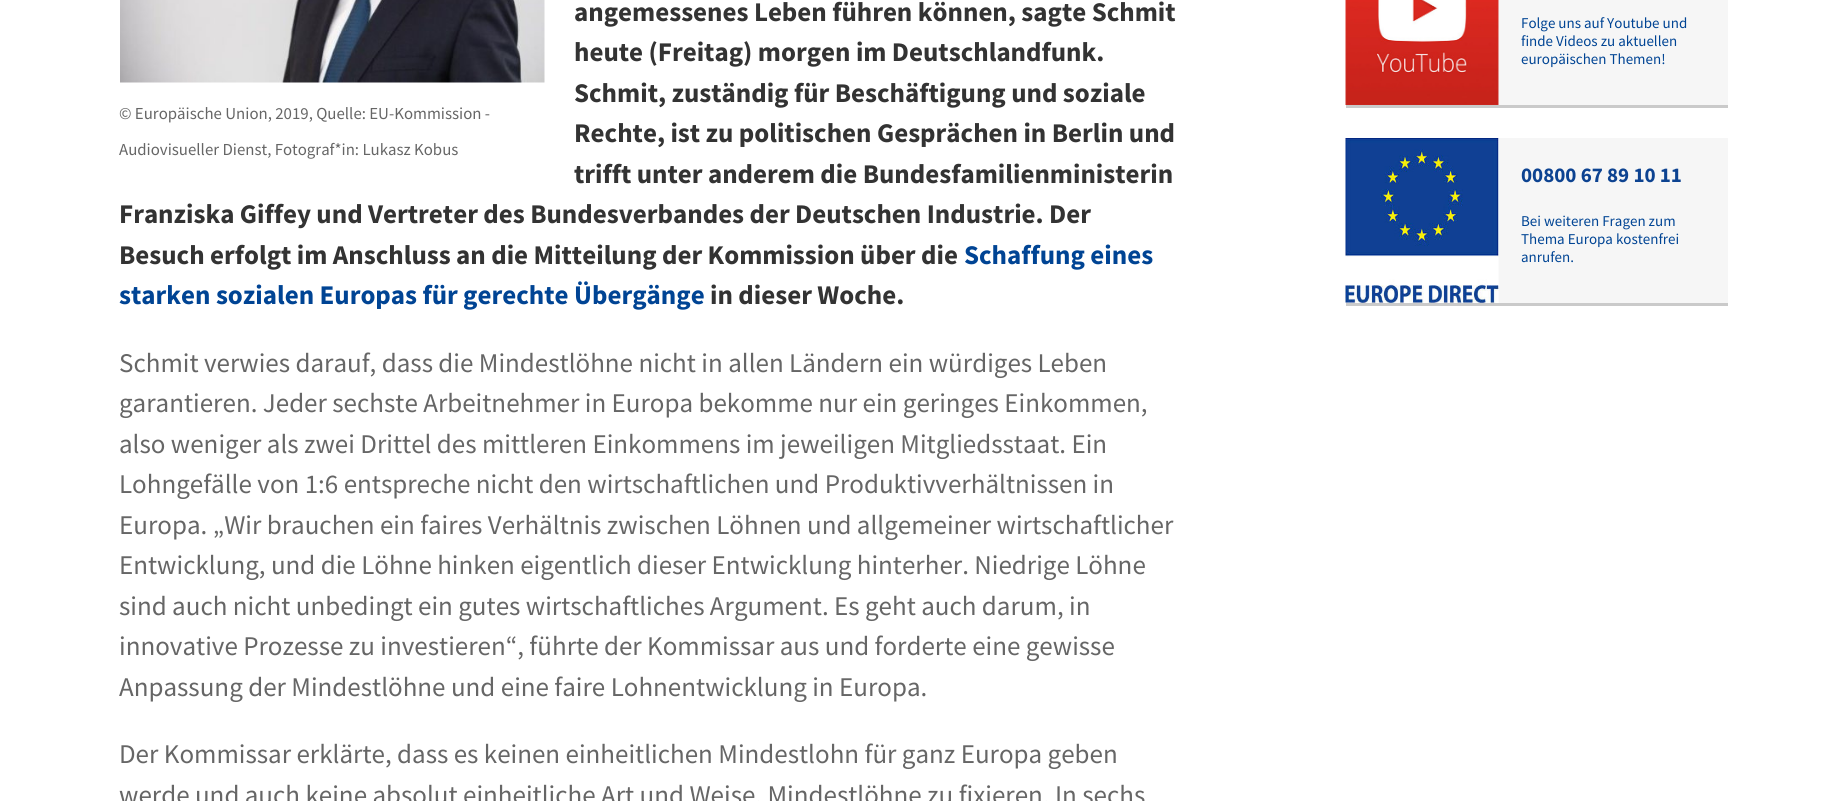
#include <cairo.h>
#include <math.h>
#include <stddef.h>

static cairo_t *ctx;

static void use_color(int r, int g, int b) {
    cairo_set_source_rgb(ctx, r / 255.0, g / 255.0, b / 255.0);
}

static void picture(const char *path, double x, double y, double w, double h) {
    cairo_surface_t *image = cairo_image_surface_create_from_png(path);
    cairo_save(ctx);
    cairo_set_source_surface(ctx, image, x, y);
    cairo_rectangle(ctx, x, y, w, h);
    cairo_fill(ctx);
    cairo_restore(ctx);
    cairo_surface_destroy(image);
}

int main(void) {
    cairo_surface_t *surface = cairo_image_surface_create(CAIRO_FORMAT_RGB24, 1846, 801);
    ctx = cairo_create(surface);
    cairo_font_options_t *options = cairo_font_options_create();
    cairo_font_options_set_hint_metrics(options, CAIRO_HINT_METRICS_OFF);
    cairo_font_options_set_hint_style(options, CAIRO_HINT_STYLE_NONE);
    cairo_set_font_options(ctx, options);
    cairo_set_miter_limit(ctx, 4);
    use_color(255, 255, 255);
    cairo_paint(ctx);
    cairo_select_font_face(ctx, "Source Sans Pro", CAIRO_FONT_SLANT_NORMAL, CAIRO_FONT_WEIGHT_BOLD);
    cairo_set_font_size(ctx, 27);
    use_color(51, 51, 51);
    cairo_move_to(ctx, 574, 21);
    cairo_show_text(ctx, "angemessenes Leben führen können, sagte Schmit");
    cairo_move_to(ctx, 574, 61);
    cairo_show_text(ctx, "heute (Freitag) morgen im Deutschlandfunk.");
    cairo_move_to(ctx, 574, 102);
    cairo_show_text(ctx, "Schmit, zuständig für Beschäftigung und soziale");
    cairo_move_to(ctx, 574, 142);
    cairo_show_text(ctx, "Rechte, ist zu politischen Gesprächen in Berlin und");
    cairo_move_to(ctx, 574, 183);
    cairo_show_text(ctx, "trifft unter anderem die Bundesfamilienministerin");
    cairo_move_to(ctx, 119, 223);
    cairo_show_text(ctx, "Franziska Giffey und Vertreter des Bundesverbandes der Deutschen Industrie. Der");
    cairo_move_to(ctx, 119, 264);
    cairo_show_text(ctx, "Besuch erfolgt im Anschluss an die Mitteilung der Kommission über die");
    use_color(0, 68, 148);
    cairo_move_to(ctx, 964, 264);
    cairo_show_text(ctx, "Schaffung eines");
    cairo_move_to(ctx, 119, 304);
    cairo_show_text(ctx, "starken sozialen Europas für gerechte Übergänge");
    use_color(51, 51, 51);
    cairo_move_to(ctx, 710, 304);
    cairo_show_text(ctx, "in dieser Woche.");
    cairo_select_font_face(ctx, "Source Sans Pro", CAIRO_FONT_SLANT_NORMAL, CAIRO_FONT_WEIGHT_NORMAL);
    use_color(102, 102, 102);
    cairo_move_to(ctx, 119, 372);
    cairo_show_text(ctx, "Schmit verwies darauf, dass die Mindestlöhne nicht in allen Ländern ein würdiges Leben");
    cairo_move_to(ctx, 119, 412);
    cairo_show_text(ctx, "garantieren. Jeder sechste Arbeitnehmer in Europa bekomme nur ein geringes Einkommen,");
    cairo_move_to(ctx, 119, 453);
    cairo_show_text(ctx, "also weniger als zwei Drittel des mittleren Einkommens im jeweiligen Mitgliedsstaat. Ein");
    cairo_move_to(ctx, 119, 493);
    cairo_show_text(ctx, "Lohngefälle von 1:6 entspreche nicht den wirtschaftlichen und Produktivverhältnissen in");
    cairo_move_to(ctx, 119, 534);
    cairo_show_text(ctx, "Europa. „Wir brauchen ein faires Verhältnis zwischen Löhnen und allgemeiner wirtschaftlicher");
    cairo_move_to(ctx, 119, 574);
    cairo_show_text(ctx, "Entwicklung, und die Löhne hinken eigentlich dieser Entwicklung hinterher. Niedrige Löhne");
    cairo_move_to(ctx, 119, 615);
    cairo_show_text(ctx, "sind auch nicht unbedingt ein gutes wirtschaftliches Argument. Es geht auch darum, in");
    cairo_move_to(ctx, 119, 655);
    cairo_show_text(ctx, "innovative Prozesse zu investieren“, führte der Kommissar aus und forderte eine gewisse");
    cairo_move_to(ctx, 119, 696);
    cairo_show_text(ctx, "Anpassung der Mindestlöhne und eine faire Lohnentwicklung in Europa.");
    cairo_move_to(ctx, 119, 763);
    cairo_show_text(ctx, "Der Kommissar erklärte, dass es keinen einheitlichen Mindestlohn für ganz Europa geben");
    cairo_move_to(ctx, 119, 804);
    cairo_show_text(ctx, "werde und auch keine absolut einheitliche Art und Weise, Mindestlöhne zu fixieren. In sechs");
    picture("img1.png", 120, 0, 425, 83);
    cairo_set_font_size(ctx, 16.8);
    cairo_move_to(ctx, 119, 119);
    cairo_show_text(ctx, "© Europäische Union, 2019, Quelle: EU-Kommission -");
    cairo_move_to(ctx, 119, 155);
    cairo_show_text(ctx, "Audiovisueller Dienst, Fotograf*in: Lukasz Kobus");
    use_color(246, 246, 246);
    cairo_rectangle(ctx, 1498, 0, 230, 105);
    cairo_fill(ctx);
    use_color(202, 202, 202);
    cairo_rectangle(ctx, 1346, 105, 382, 3);
    cairo_fill(ctx);
    picture("img2.png", 1345, 0, 154, 105);
    cairo_set_font_size(ctx, 15);
    use_color(0, 68, 148);
    cairo_move_to(ctx, 1521, 28);
    cairo_show_text(ctx, "Folge uns auf Youtube und");
    cairo_move_to(ctx, 1521, 46);
    cairo_show_text(ctx, "finde Videos zu aktuellen");
    cairo_move_to(ctx, 1521, 64);
    cairo_show_text(ctx, "europäischen Themen!");
    use_color(246, 246, 246);
    cairo_rectangle(ctx, 1498, 138, 230, 165);
    cairo_fill(ctx);
    use_color(202, 202, 202);
    cairo_rectangle(ctx, 1346, 303, 382, 3);
    cairo_fill(ctx);
    picture("img3.png", 1345, 138, 154, 165);
    cairo_select_font_face(ctx, "Source Sans Pro", CAIRO_FONT_SLANT_NORMAL, CAIRO_FONT_WEIGHT_BOLD);
    cairo_set_font_size(ctx, 21);
    use_color(13, 67, 145);
    cairo_move_to(ctx, 1521, 182);
    cairo_show_text(ctx, "00800 67 89 10 11");
    cairo_select_font_face(ctx, "Source Sans Pro", CAIRO_FONT_SLANT_NORMAL, CAIRO_FONT_WEIGHT_NORMAL);
    cairo_set_font_size(ctx, 15);
    use_color(0, 68, 148);
    cairo_move_to(ctx, 1521, 226);
    cairo_show_text(ctx, "Bei weiteren Fragen zum");
    cairo_move_to(ctx, 1521, 244);
    cairo_show_text(ctx, "Thema Europa kostenfrei");
    cairo_move_to(ctx, 1521, 262);
    cairo_show_text(ctx, "anrufen.");
    cairo_surface_write_to_png(surface, "result.png");
    cairo_font_options_destroy(options);
    cairo_destroy(ctx);
    cairo_surface_destroy(surface);
    return 0;
}
